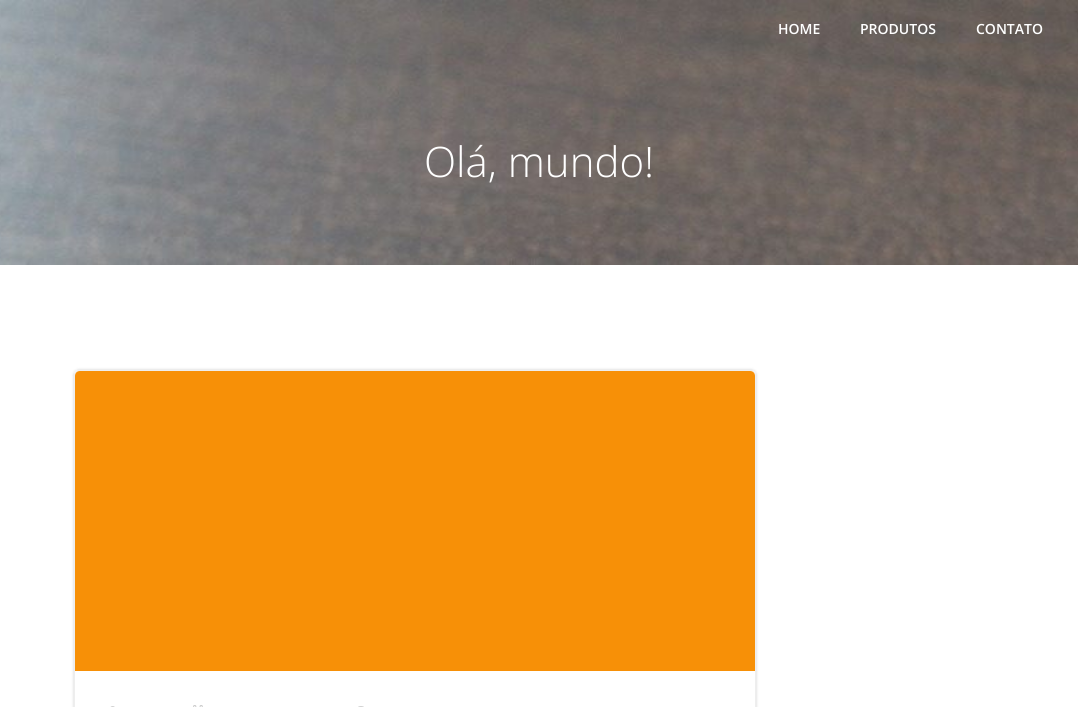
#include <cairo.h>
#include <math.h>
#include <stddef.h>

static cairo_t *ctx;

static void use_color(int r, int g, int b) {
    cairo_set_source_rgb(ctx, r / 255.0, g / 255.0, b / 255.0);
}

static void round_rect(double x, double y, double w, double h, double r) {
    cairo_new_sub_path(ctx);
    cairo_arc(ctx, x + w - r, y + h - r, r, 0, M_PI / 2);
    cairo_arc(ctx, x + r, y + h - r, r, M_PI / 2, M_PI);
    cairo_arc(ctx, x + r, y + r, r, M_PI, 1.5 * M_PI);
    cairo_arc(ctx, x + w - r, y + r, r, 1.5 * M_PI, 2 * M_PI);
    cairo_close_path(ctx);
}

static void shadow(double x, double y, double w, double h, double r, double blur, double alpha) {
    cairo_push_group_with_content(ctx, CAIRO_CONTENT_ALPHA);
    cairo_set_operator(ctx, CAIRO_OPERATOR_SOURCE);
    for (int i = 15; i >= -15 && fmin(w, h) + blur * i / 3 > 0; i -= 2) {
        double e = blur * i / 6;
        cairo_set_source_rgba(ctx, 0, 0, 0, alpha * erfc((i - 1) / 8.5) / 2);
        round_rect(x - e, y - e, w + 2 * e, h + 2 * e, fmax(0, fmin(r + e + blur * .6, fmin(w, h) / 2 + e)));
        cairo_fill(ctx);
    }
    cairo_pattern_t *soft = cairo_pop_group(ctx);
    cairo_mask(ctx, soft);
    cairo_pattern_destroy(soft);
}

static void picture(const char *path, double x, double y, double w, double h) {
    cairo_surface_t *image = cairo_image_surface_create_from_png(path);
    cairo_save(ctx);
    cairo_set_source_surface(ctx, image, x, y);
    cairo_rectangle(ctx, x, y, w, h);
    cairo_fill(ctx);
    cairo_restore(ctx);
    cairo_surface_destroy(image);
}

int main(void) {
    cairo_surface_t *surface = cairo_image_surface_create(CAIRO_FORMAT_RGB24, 1078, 707);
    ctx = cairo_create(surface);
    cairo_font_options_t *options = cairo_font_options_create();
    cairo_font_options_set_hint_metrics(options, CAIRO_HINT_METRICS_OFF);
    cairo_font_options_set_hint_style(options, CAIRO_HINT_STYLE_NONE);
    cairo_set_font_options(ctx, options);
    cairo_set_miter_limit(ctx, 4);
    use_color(255, 255, 255);
    cairo_paint(ctx);
    picture("img1.png", 0, 0, 1078, 265);
    cairo_select_font_face(ctx, "Open Sans SemiBold", CAIRO_FONT_SLANT_NORMAL, CAIRO_FONT_WEIGHT_NORMAL);
    cairo_set_font_size(ctx, 14);
    use_color(255, 255, 255);
    cairo_move_to(ctx, 778, 34);
    cairo_show_text(ctx, "HOME");
    cairo_move_to(ctx, 860, 34);
    cairo_show_text(ctx, "PRODUTOS");
    cairo_move_to(ctx, 976, 34);
    cairo_show_text(ctx, "CONTATO");
    cairo_select_font_face(ctx, "Open Sans Light", CAIRO_FONT_SLANT_NORMAL, CAIRO_FONT_WEIGHT_NORMAL);
    cairo_set_font_size(ctx, 42);
    cairo_move_to(ctx, 424, 177);
    cairo_show_text(ctx, "Olá, mundo!");
    cairo_save(ctx);
    cairo_set_fill_rule(ctx, CAIRO_FILL_RULE_EVEN_ODD);
    cairo_new_path(ctx);
    cairo_move_to(ctx, 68, 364);
    cairo_line_to(ctx, 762, 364);
    cairo_line_to(ctx, 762, 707);
    cairo_line_to(ctx, 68, 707);
    cairo_close_path(ctx);
    cairo_move_to(ctx, 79, 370);
    cairo_line_to(ctx, 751, 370);
    cairo_curve_to(ctx, 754, 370, 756, 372, 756, 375);
    cairo_line_to(ctx, 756, 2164);
    cairo_curve_to(ctx, 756, 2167, 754, 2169, 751, 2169);
    cairo_line_to(ctx, 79, 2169);
    cairo_curve_to(ctx, 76, 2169, 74, 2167, 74, 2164);
    cairo_line_to(ctx, 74, 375);
    cairo_curve_to(ctx, 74, 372, 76, 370, 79, 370);
    cairo_close_path(ctx);
    cairo_clip(ctx);
    use_color(0, 0, 0);
    shadow(74, 370, 682, 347, 5, 1.5, 0.2);
    cairo_restore(ctx);
    round_rect(74.5, 370.5, 681, 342, 4.5);
    use_color(238, 238, 238);
    cairo_set_line_width(ctx, 1);
    cairo_stroke(ctx);
    use_color(247, 144, 7);
    cairo_new_path(ctx);
    cairo_move_to(ctx, 80, 371);
    cairo_line_to(ctx, 750, 371);
    cairo_curve_to(ctx, 753, 371, 755, 373, 755, 376);
    cairo_line_to(ctx, 755, 671);
    cairo_line_to(ctx, 75, 671);
    cairo_line_to(ctx, 75, 376);
    cairo_curve_to(ctx, 75, 373, 77, 371, 80, 371);
    cairo_close_path(ctx);
    cairo_fill(ctx);
    picture("img2.png", 110, 706, 5, 1);
    picture("img3.png", 193, 705, 10, 2);
    picture("img4.png", 358, 706, 6, 1);
    cairo_surface_write_to_png(surface, "result.png");
    cairo_font_options_destroy(options);
    cairo_destroy(ctx);
    cairo_surface_destroy(surface);
    return 0;
}
